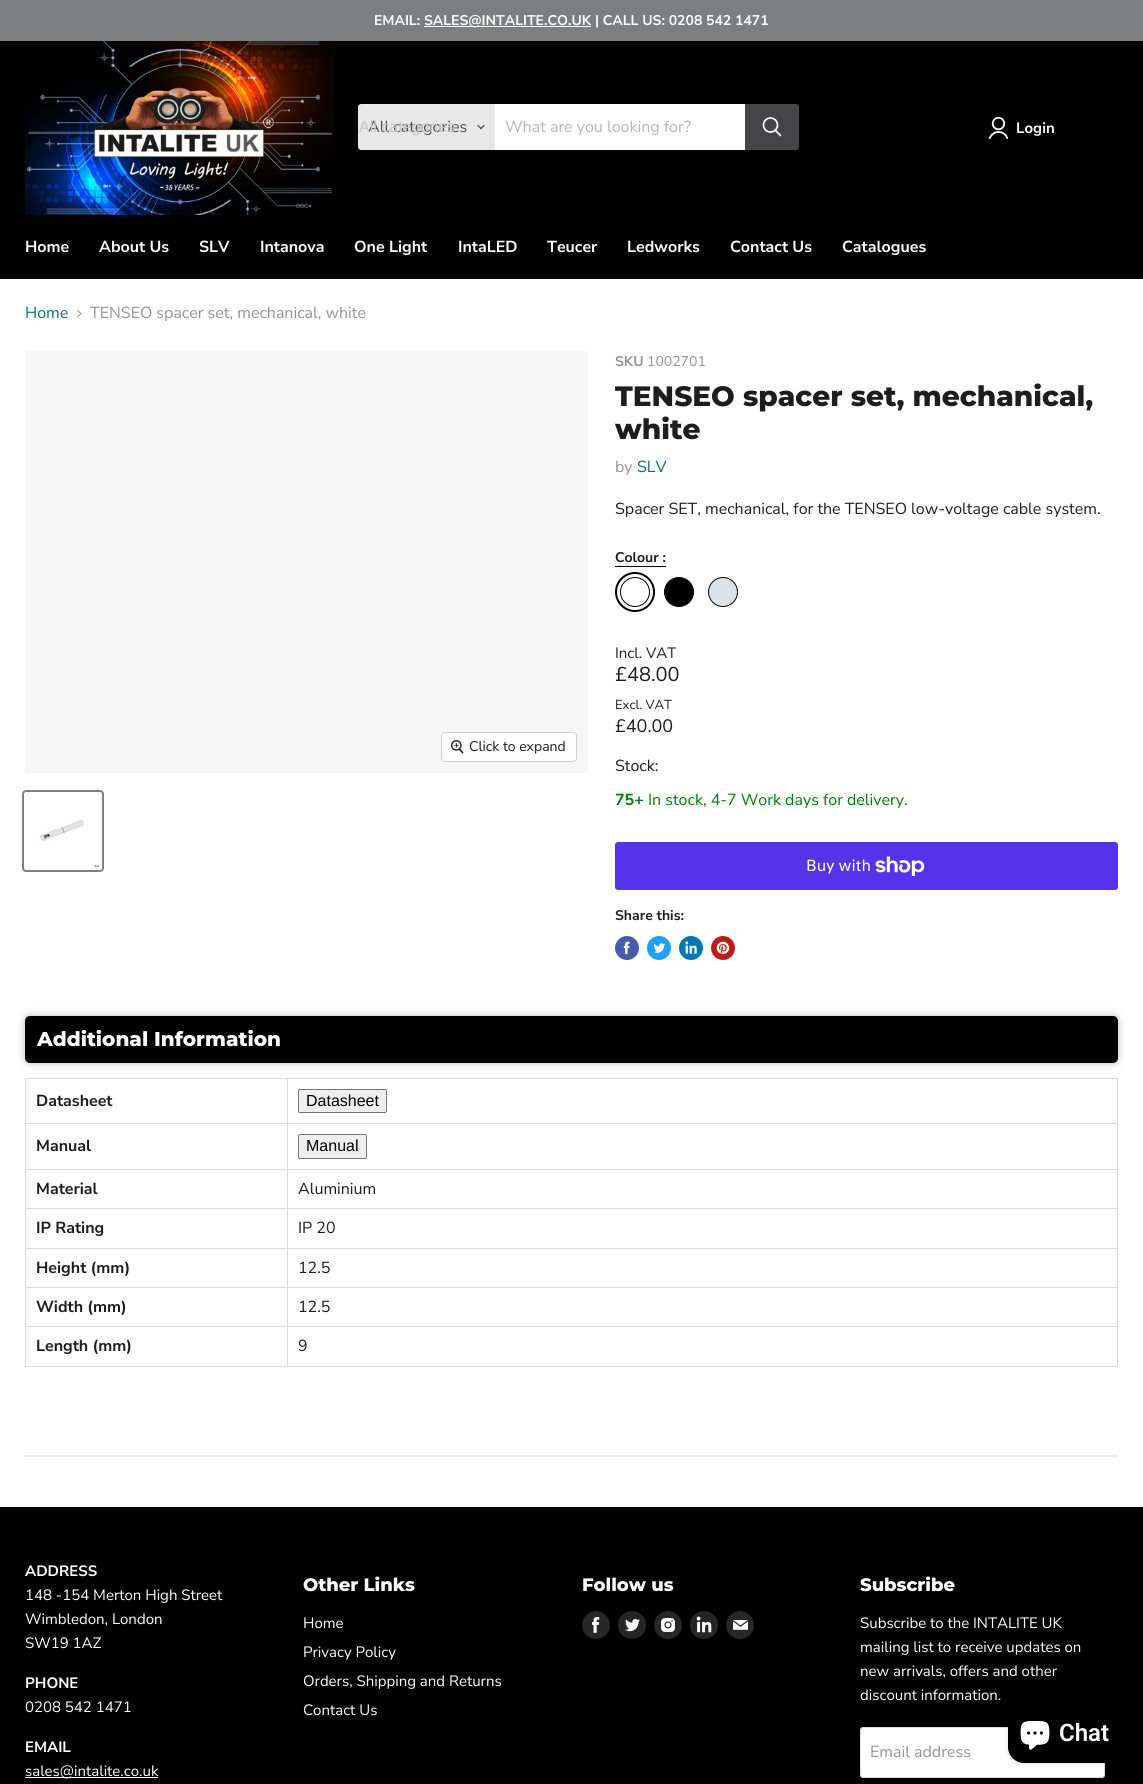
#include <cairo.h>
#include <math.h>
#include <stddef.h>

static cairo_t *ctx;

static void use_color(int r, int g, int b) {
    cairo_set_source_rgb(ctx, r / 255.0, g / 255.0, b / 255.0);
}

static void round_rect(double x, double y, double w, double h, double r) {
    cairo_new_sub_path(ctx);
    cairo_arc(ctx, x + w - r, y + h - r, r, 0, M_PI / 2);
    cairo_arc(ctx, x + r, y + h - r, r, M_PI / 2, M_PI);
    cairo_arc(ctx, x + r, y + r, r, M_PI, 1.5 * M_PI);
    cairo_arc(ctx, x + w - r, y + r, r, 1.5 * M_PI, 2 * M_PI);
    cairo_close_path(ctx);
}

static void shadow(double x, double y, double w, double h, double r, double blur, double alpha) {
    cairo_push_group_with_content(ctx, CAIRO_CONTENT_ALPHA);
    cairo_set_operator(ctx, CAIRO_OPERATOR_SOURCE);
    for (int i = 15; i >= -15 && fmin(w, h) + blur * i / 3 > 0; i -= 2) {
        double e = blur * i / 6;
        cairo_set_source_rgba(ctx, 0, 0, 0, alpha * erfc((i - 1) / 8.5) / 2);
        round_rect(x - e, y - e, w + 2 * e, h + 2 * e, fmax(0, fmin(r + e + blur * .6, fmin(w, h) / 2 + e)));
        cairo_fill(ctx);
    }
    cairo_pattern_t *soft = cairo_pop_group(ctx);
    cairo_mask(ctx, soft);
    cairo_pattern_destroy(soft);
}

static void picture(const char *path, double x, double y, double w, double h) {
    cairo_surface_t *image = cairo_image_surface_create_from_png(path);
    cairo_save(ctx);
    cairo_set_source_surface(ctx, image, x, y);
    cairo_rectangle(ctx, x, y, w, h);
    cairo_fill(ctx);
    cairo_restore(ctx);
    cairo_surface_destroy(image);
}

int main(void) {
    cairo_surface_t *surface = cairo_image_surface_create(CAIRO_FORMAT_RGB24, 1143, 1784);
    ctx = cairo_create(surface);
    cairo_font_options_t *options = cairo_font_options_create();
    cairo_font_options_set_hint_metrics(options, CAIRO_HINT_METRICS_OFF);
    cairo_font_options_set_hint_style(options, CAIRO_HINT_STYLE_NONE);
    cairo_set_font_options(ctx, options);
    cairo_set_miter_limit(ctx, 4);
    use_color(255, 255, 255);
    cairo_paint(ctx);
    use_color(125, 126, 127);
    cairo_rectangle(ctx, 0, 0, 1143, 41);
    cairo_fill(ctx);
    cairo_select_font_face(ctx, "Nunito Sans", CAIRO_FONT_SLANT_NORMAL, CAIRO_FONT_WEIGHT_BOLD);
    cairo_set_font_size(ctx, 14);
    use_color(255, 255, 255);
    cairo_move_to(ctx, 374, 25);
    cairo_show_text(ctx, "EMAIL:");
    cairo_rectangle(ctx, 424, 26, 167, 1);
    cairo_fill(ctx);
    cairo_move_to(ctx, 424, 25);
    cairo_show_text(ctx, "SALES@INTALITE.CO.UK");
    cairo_move_to(ctx, 595, 25);
    cairo_show_text(ctx, "| CALL US: 0208 542 1471");
    use_color(0, 0, 0);
    cairo_rectangle(ctx, 0, 41, 1143, 238);
    cairo_fill(ctx);
    picture("img1.png", 25, 41, 309, 174);
    use_color(232, 232, 232);
    cairo_new_path(ctx);
    cairo_move_to(ctx, 361, 104);
    cairo_line_to(ctx, 495, 104);
    cairo_line_to(ctx, 495, 150);
    cairo_line_to(ctx, 361, 150);
    cairo_curve_to(ctx, 359.5, 150, 358, 148.5, 358, 147);
    cairo_line_to(ctx, 358, 107);
    cairo_curve_to(ctx, 358, 105.5, 359.5, 104, 361, 104);
    cairo_close_path(ctx);
    cairo_fill(ctx);
    cairo_select_font_face(ctx, "Nunito Sans", CAIRO_FONT_SLANT_NORMAL, CAIRO_FONT_WEIGHT_NORMAL);
    cairo_set_font_size(ctx, 16);
    use_color(77, 77, 77);
    cairo_move_to(ctx, 368, 132);
    cairo_show_text(ctx, "All categories");
    cairo_select_font_face(ctx, "Liberation Sans", CAIRO_FONT_SLANT_NORMAL, CAIRO_FONT_WEIGHT_NORMAL);
    use_color(196, 196, 196);
    cairo_move_to(ctx, 359, 132);
    cairo_show_text(ctx, "All categories");
    picture("img2.png", 477, 124, 8, 6);
    use_color(255, 255, 255);
    cairo_rectangle(ctx, 495, 104, 250, 46);
    cairo_fill(ctx);
    cairo_select_font_face(ctx, "Nunito Sans", CAIRO_FONT_SLANT_NORMAL, CAIRO_FONT_WEIGHT_NORMAL);
    use_color(184, 184, 184);
    cairo_move_to(ctx, 505, 132);
    cairo_show_text(ctx, "What are you looking for?");
    use_color(69, 69, 71);
    cairo_new_path(ctx);
    cairo_move_to(ctx, 745.5, 104.5);
    cairo_line_to(ctx, 796, 104.5);
    cairo_curve_to(ctx, 797.5, 104.5, 798.5, 105.5, 798.5, 107);
    cairo_line_to(ctx, 798.5, 147);
    cairo_curve_to(ctx, 798.5, 148.5, 797.5, 149.5, 796, 149.5);
    cairo_line_to(ctx, 745.5, 149.5);
    cairo_close_path(ctx);
    cairo_fill_preserve(ctx);
    cairo_set_line_width(ctx, 1);
    cairo_stroke(ctx);
    cairo_new_path(ctx);
    cairo_move_to(ctx, 780.5, 135.5);
    cairo_line_to(ctx, 775.5, 130.5);
    use_color(255, 255, 255);
    cairo_set_line_width(ctx, 1.7);
    cairo_set_line_cap(ctx, CAIRO_LINE_CAP_ROUND);
    cairo_stroke(ctx);
    cairo_arc(ctx, 770.5, 125, 7, 0, 2 * M_PI);
    cairo_set_line_cap(ctx, CAIRO_LINE_CAP_BUTT);
    cairo_stroke(ctx);
    picture("img3.png", 988, 116, 20, 24);
    cairo_select_font_face(ctx, "Nunito Sans", CAIRO_FONT_SLANT_NORMAL, CAIRO_FONT_WEIGHT_BOLD);
    cairo_set_font_size(ctx, 15);
    cairo_move_to(ctx, 1016, 133);
    cairo_show_text(ctx, "Login");
    cairo_set_font_size(ctx, 16);
    cairo_move_to(ctx, 25, 252);
    cairo_show_text(ctx, "Home");
    cairo_move_to(ctx, 99, 252);
    cairo_show_text(ctx, "About Us");
    cairo_move_to(ctx, 199, 252);
    cairo_show_text(ctx, "SLV");
    cairo_move_to(ctx, 260, 252);
    cairo_show_text(ctx, "Intanova");
    cairo_move_to(ctx, 354, 252);
    cairo_show_text(ctx, "One Light");
    cairo_move_to(ctx, 458, 252);
    cairo_show_text(ctx, "IntaLED");
    cairo_move_to(ctx, 547, 252);
    cairo_show_text(ctx, "Teucer");
    cairo_move_to(ctx, 627, 252);
    cairo_show_text(ctx, "Ledworks");
    cairo_move_to(ctx, 730, 252);
    cairo_show_text(ctx, "Contact Us");
    cairo_move_to(ctx, 842, 252);
    cairo_show_text(ctx, "Catalogues");
    cairo_select_font_face(ctx, "Nunito Sans", CAIRO_FONT_SLANT_NORMAL, CAIRO_FONT_WEIGHT_NORMAL);
    use_color(4, 110, 130);
    cairo_move_to(ctx, 25, 318);
    cairo_show_text(ctx, "Home");
    picture("img4.png", 77, 310, 5, 8);
    use_color(148, 148, 148);
    cairo_move_to(ctx, 90, 318);
    cairo_show_text(ctx, "TENSEO spacer set, mechanical, white");
    use_color(246, 246, 246);
    cairo_rectangle(ctx, 25, 351, 563, 422);
    cairo_fill(ctx);
    round_rect(441.5, 732.5, 135, 29, 3.5);
    use_color(209, 209, 209);
    cairo_set_line_width(ctx, 1);
    cairo_stroke(ctx);
    cairo_set_source_rgba(ctx, 1, 1, 1, 0.9);
    round_rect(442, 733, 134, 28, 3);
    cairo_fill(ctx);
    picture("img5.png", 451, 740, 13, 14);
    cairo_set_font_size(ctx, 14);
    use_color(29, 29, 29);
    cairo_move_to(ctx, 469, 751);
    cairo_show_text(ctx, "Click to expand");
    round_rect(23, 791, 80, 80, 3);
    use_color(129, 129, 129);
    cairo_set_line_width(ctx, 2);
    cairo_stroke(ctx);
    picture("img6.png", 40, 819, 59, 49);
    cairo_select_font_face(ctx, "Nunito Sans", CAIRO_FONT_SLANT_NORMAL, CAIRO_FONT_WEIGHT_BOLD);
    use_color(148, 148, 148);
    cairo_move_to(ctx, 615, 366);
    cairo_show_text(ctx, "SKU");
    cairo_select_font_face(ctx, "Nunito Sans", CAIRO_FONT_SLANT_NORMAL, CAIRO_FONT_WEIGHT_NORMAL);
    cairo_move_to(ctx, 647, 366);
    cairo_show_text(ctx, "1002701");
    cairo_select_font_face(ctx, "Montserrat ExtraBold", CAIRO_FONT_SLANT_NORMAL, CAIRO_FONT_WEIGHT_NORMAL);
    cairo_set_font_size(ctx, 28);
    use_color(29, 29, 29);
    cairo_move_to(ctx, 615, 406);
    cairo_show_text(ctx, "TENSEO spacer set, mechanical,");
    cairo_move_to(ctx, 615, 439);
    cairo_show_text(ctx, "white");
    cairo_select_font_face(ctx, "Nunito Sans", CAIRO_FONT_SLANT_NORMAL, CAIRO_FONT_WEIGHT_NORMAL);
    cairo_set_font_size(ctx, 16);
    use_color(148, 148, 148);
    cairo_move_to(ctx, 615, 472);
    cairo_show_text(ctx, "by");
    use_color(4, 110, 130);
    cairo_move_to(ctx, 637, 472);
    cairo_show_text(ctx, "SLV");
    use_color(29, 29, 29);
    cairo_move_to(ctx, 615, 514);
    cairo_show_text(ctx, "Spacer SET, mechanical, for the TENSEO low-voltage cable system.");
    use_color(0, 0, 0);
    cairo_rectangle(ctx, 615, 566, 51, 1);
    cairo_fill(ctx);
    cairo_select_font_face(ctx, "Nunito Sans", CAIRO_FONT_SLANT_NORMAL, CAIRO_FONT_WEIGHT_BOLD);
    cairo_set_font_size(ctx, 14);
    use_color(29, 29, 29);
    cairo_move_to(ctx, 615, 562);
    cairo_show_text(ctx, "Colour :");
    cairo_new_path(ctx);
    cairo_arc(ctx, 635, 592, 14.5, 0, 2 * M_PI);
    use_color(0, 0, 0);
    cairo_set_line_width(ctx, 1);
    cairo_stroke(ctx);
    cairo_arc(ctx, 635, 592, 19, 0, 2 * M_PI);
    cairo_set_line_width(ctx, 2);
    cairo_stroke(ctx);
    cairo_arc(ctx, 679, 592, 14.5, 0, 2 * M_PI);
    cairo_fill_preserve(ctx);
    cairo_set_line_width(ctx, 1);
    cairo_stroke(ctx);
    use_color(219, 226, 233);
    cairo_arc(ctx, 723, 592, 14.5, 0, 2 * M_PI);
    cairo_fill_preserve(ctx);
    use_color(0, 0, 0);
    cairo_stroke(ctx);
    cairo_select_font_face(ctx, "Nunito Sans", CAIRO_FONT_SLANT_NORMAL, CAIRO_FONT_WEIGHT_NORMAL);
    cairo_set_font_size(ctx, 15);
    use_color(29, 29, 29);
    cairo_move_to(ctx, 615, 658);
    cairo_show_text(ctx, "Incl. VAT");
    cairo_set_font_size(ctx, 20);
    cairo_move_to(ctx, 615, 681);
    cairo_show_text(ctx, "£48.00");
    cairo_set_font_size(ctx, 13);
    cairo_move_to(ctx, 615, 709);
    cairo_show_text(ctx, "Excl. VAT");
    cairo_set_font_size(ctx, 18);
    cairo_move_to(ctx, 615, 732);
    cairo_show_text(ctx, "£40.00");
    cairo_set_font_size(ctx, 16);
    cairo_move_to(ctx, 615, 771);
    cairo_show_text(ctx, "Stock:");
    cairo_select_font_face(ctx, "Nunito Sans", CAIRO_FONT_SLANT_NORMAL, CAIRO_FONT_WEIGHT_BOLD);
    use_color(0, 128, 0);
    cairo_move_to(ctx, 615, 805);
    cairo_show_text(ctx, "75+");
    cairo_select_font_face(ctx, "Nunito Sans", CAIRO_FONT_SLANT_NORMAL, CAIRO_FONT_WEIGHT_NORMAL);
    cairo_move_to(ctx, 648, 805);
    cairo_show_text(ctx, "In stock, 4-7 Work days for delivery.");
    use_color(84, 51, 235);
    round_rect(615, 842, 503, 48, 3);
    cairo_fill(ctx);
    cairo_select_font_face(ctx, "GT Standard", CAIRO_FONT_SLANT_NORMAL, CAIRO_FONT_WEIGHT_NORMAL);
    use_color(255, 255, 255);
    cairo_move_to(ctx, 806, 871);
    cairo_show_text(ctx, "Buy with");
    picture("img7.png", 875, 856, 50, 20);
    cairo_select_font_face(ctx, "Nunito Sans", CAIRO_FONT_SLANT_NORMAL, CAIRO_FONT_WEIGHT_BOLD);
    cairo_set_font_size(ctx, 14);
    use_color(29, 29, 29);
    cairo_move_to(ctx, 615, 920);
    cairo_show_text(ctx, "Share this:");
    use_color(66, 93, 171);
    cairo_new_path(ctx);
    cairo_arc(ctx, 627, 948, 12, 0, 2 * M_PI);
    cairo_fill(ctx);
    picture("img8.png", 623, 941, 7, 14);
    use_color(29, 161, 242);
    cairo_arc(ctx, 659, 948, 12, 0, 2 * M_PI);
    cairo_fill(ctx);
    picture("img9.png", 653, 943, 13, 10);
    use_color(0, 119, 181);
    cairo_arc(ctx, 691, 948, 12, 0, 2 * M_PI);
    cairo_fill(ctx);
    picture("img10.png", 685, 941, 12, 13);
    use_color(189, 28, 28);
    cairo_arc(ctx, 723, 948, 12, 0, 2 * M_PI);
    cairo_fill(ctx);
    picture("img11.png", 716, 941, 14, 14);
    use_color(187, 187, 187);
    shadow(25, 1016, 1093, 47, 5, 4, 1);
    use_color(0, 0, 0);
    round_rect(25, 1016, 1093, 47, 5);
    cairo_fill(ctx);
    cairo_select_font_face(ctx, "Montserrat ExtraBold", CAIRO_FONT_SLANT_NORMAL, CAIRO_FONT_WEIGHT_NORMAL);
    cairo_set_font_size(ctx, 20);
    use_color(255, 255, 255);
    cairo_move_to(ctx, 37, 1046);
    cairo_show_text(ctx, "Additional Information");
    use_color(221, 221, 221);
    cairo_rectangle(ctx, 25, 1078, 1093, 1);
    cairo_fill(ctx);
    cairo_rectangle(ctx, 1117, 1078, 1, 289);
    cairo_fill(ctx);
    cairo_rectangle(ctx, 25, 1366, 1093, 1);
    cairo_fill(ctx);
    cairo_rectangle(ctx, 25, 1078, 1, 289);
    cairo_fill(ctx);
    cairo_select_font_face(ctx, "Nunito Sans", CAIRO_FONT_SLANT_NORMAL, CAIRO_FONT_WEIGHT_BOLD);
    cairo_set_font_size(ctx, 16);
    use_color(29, 29, 29);
    cairo_move_to(ctx, 36, 1106);
    cairo_show_text(ctx, "Datasheet");
    use_color(239, 239, 239);
    round_rect(298.5, 1089.5, 88, 23, 1.5);
    cairo_fill_preserve(ctx);
    use_color(118, 118, 118);
    cairo_stroke(ctx);
    cairo_select_font_face(ctx, "Liberation Sans", CAIRO_FONT_SLANT_NORMAL, CAIRO_FONT_WEIGHT_NORMAL);
    use_color(0, 0, 0);
    cairo_move_to(ctx, 306, 1106);
    cairo_show_text(ctx, "Datasheet");
    use_color(221, 221, 221);
    cairo_rectangle(ctx, 25, 1123, 1093, 1);
    cairo_fill(ctx);
    cairo_select_font_face(ctx, "Nunito Sans", CAIRO_FONT_SLANT_NORMAL, CAIRO_FONT_WEIGHT_BOLD);
    use_color(29, 29, 29);
    cairo_move_to(ctx, 36, 1151);
    cairo_show_text(ctx, "Manual");
    use_color(239, 239, 239);
    round_rect(298.5, 1134.5, 68, 24, 1.5);
    cairo_fill_preserve(ctx);
    use_color(118, 118, 118);
    cairo_stroke(ctx);
    cairo_select_font_face(ctx, "Liberation Sans", CAIRO_FONT_SLANT_NORMAL, CAIRO_FONT_WEIGHT_NORMAL);
    use_color(0, 0, 0);
    cairo_move_to(ctx, 306, 1151);
    cairo_show_text(ctx, "Manual");
    use_color(221, 221, 221);
    cairo_rectangle(ctx, 25, 1169, 1093, 1);
    cairo_fill(ctx);
    cairo_select_font_face(ctx, "Nunito Sans", CAIRO_FONT_SLANT_NORMAL, CAIRO_FONT_WEIGHT_BOLD);
    use_color(29, 29, 29);
    cairo_move_to(ctx, 36, 1194);
    cairo_show_text(ctx, "Material");
    cairo_select_font_face(ctx, "Nunito Sans", CAIRO_FONT_SLANT_NORMAL, CAIRO_FONT_WEIGHT_NORMAL);
    cairo_move_to(ctx, 298, 1194);
    cairo_show_text(ctx, "Aluminium");
    use_color(221, 221, 221);
    cairo_rectangle(ctx, 25, 1208, 1093, 1);
    cairo_fill(ctx);
    cairo_select_font_face(ctx, "Nunito Sans", CAIRO_FONT_SLANT_NORMAL, CAIRO_FONT_WEIGHT_BOLD);
    use_color(29, 29, 29);
    cairo_move_to(ctx, 36, 1233);
    cairo_show_text(ctx, "IP Rating");
    cairo_select_font_face(ctx, "Nunito Sans", CAIRO_FONT_SLANT_NORMAL, CAIRO_FONT_WEIGHT_NORMAL);
    cairo_move_to(ctx, 298, 1233);
    cairo_show_text(ctx, "IP 20");
    use_color(221, 221, 221);
    cairo_rectangle(ctx, 25, 1248, 1093, 1);
    cairo_fill(ctx);
    cairo_select_font_face(ctx, "Nunito Sans", CAIRO_FONT_SLANT_NORMAL, CAIRO_FONT_WEIGHT_BOLD);
    use_color(29, 29, 29);
    cairo_move_to(ctx, 36, 1273);
    cairo_show_text(ctx, "Height (mm)");
    cairo_select_font_face(ctx, "Nunito Sans", CAIRO_FONT_SLANT_NORMAL, CAIRO_FONT_WEIGHT_NORMAL);
    cairo_move_to(ctx, 298, 1273);
    cairo_show_text(ctx, "12.5");
    use_color(221, 221, 221);
    cairo_rectangle(ctx, 25, 1287, 1093, 1);
    cairo_fill(ctx);
    cairo_select_font_face(ctx, "Nunito Sans", CAIRO_FONT_SLANT_NORMAL, CAIRO_FONT_WEIGHT_BOLD);
    use_color(29, 29, 29);
    cairo_move_to(ctx, 36, 1312);
    cairo_show_text(ctx, "Width (mm)");
    cairo_select_font_face(ctx, "Nunito Sans", CAIRO_FONT_SLANT_NORMAL, CAIRO_FONT_WEIGHT_NORMAL);
    cairo_move_to(ctx, 298, 1312);
    cairo_show_text(ctx, "12.5");
    use_color(221, 221, 221);
    cairo_rectangle(ctx, 25, 1326, 1093, 1);
    cairo_fill(ctx);
    cairo_select_font_face(ctx, "Nunito Sans", CAIRO_FONT_SLANT_NORMAL, CAIRO_FONT_WEIGHT_BOLD);
    use_color(29, 29, 29);
    cairo_move_to(ctx, 36, 1351);
    cairo_show_text(ctx, "Length (mm)");
    use_color(221, 221, 221);
    cairo_rectangle(ctx, 287, 1078, 1, 289);
    cairo_fill(ctx);
    cairo_select_font_face(ctx, "Nunito Sans", CAIRO_FONT_SLANT_NORMAL, CAIRO_FONT_WEIGHT_NORMAL);
    use_color(29, 29, 29);
    cairo_move_to(ctx, 298, 1351);
    cairo_show_text(ctx, "9");
    use_color(235, 235, 235);
    cairo_rectangle(ctx, 25, 1455, 1093, 2);
    cairo_fill(ctx);
    use_color(0, 0, 0);
    cairo_rectangle(ctx, 0, 1507, 1143, 277);
    cairo_fill(ctx);
    cairo_select_font_face(ctx, "Nunito Sans", CAIRO_FONT_SLANT_NORMAL, CAIRO_FONT_WEIGHT_BOLD);
    cairo_set_font_size(ctx, 15);
    use_color(255, 255, 255);
    cairo_move_to(ctx, 25, 1576);
    cairo_show_text(ctx, "ADDRESS");
    cairo_select_font_face(ctx, "Nunito Sans", CAIRO_FONT_SLANT_NORMAL, CAIRO_FONT_WEIGHT_NORMAL);
    cairo_move_to(ctx, 25, 1600);
    cairo_show_text(ctx, "148 -154 Merton High Street");
    cairo_move_to(ctx, 25, 1624);
    cairo_show_text(ctx, "Wimbledon, London");
    cairo_move_to(ctx, 25, 1648);
    cairo_show_text(ctx, "SW19 1AZ");
    cairo_select_font_face(ctx, "Nunito Sans", CAIRO_FONT_SLANT_NORMAL, CAIRO_FONT_WEIGHT_BOLD);
    cairo_move_to(ctx, 25, 1688);
    cairo_show_text(ctx, "PHONE");
    cairo_select_font_face(ctx, "Nunito Sans", CAIRO_FONT_SLANT_NORMAL, CAIRO_FONT_WEIGHT_NORMAL);
    cairo_move_to(ctx, 25, 1712);
    cairo_show_text(ctx, "0208 542 1471");
    cairo_select_font_face(ctx, "Nunito Sans", CAIRO_FONT_SLANT_NORMAL, CAIRO_FONT_WEIGHT_BOLD);
    cairo_move_to(ctx, 25, 1752);
    cairo_show_text(ctx, "EMAIL");
    cairo_rectangle(ctx, 25, 1777, 133, 1);
    cairo_fill(ctx);
    cairo_select_font_face(ctx, "Nunito Sans", CAIRO_FONT_SLANT_NORMAL, CAIRO_FONT_WEIGHT_NORMAL);
    cairo_move_to(ctx, 25, 1776);
    cairo_show_text(ctx, "sales@intalite.co.uk");
    cairo_select_font_face(ctx, "Montserrat ExtraBold", CAIRO_FONT_SLANT_NORMAL, CAIRO_FONT_WEIGHT_NORMAL);
    cairo_set_font_size(ctx, 18);
    cairo_move_to(ctx, 303, 1591);
    cairo_show_text(ctx, "Other Links");
    cairo_select_font_face(ctx, "Nunito Sans", CAIRO_FONT_SLANT_NORMAL, CAIRO_FONT_WEIGHT_NORMAL);
    cairo_set_font_size(ctx, 15);
    cairo_move_to(ctx, 303, 1628);
    cairo_show_text(ctx, "Home");
    cairo_move_to(ctx, 303, 1657);
    cairo_show_text(ctx, "Privacy Policy");
    cairo_move_to(ctx, 303, 1686);
    cairo_show_text(ctx, "Orders, Shipping and Returns");
    cairo_move_to(ctx, 303, 1715);
    cairo_show_text(ctx, "Contact Us");
    cairo_select_font_face(ctx, "Montserrat ExtraBold", CAIRO_FONT_SLANT_NORMAL, CAIRO_FONT_WEIGHT_NORMAL);
    cairo_set_font_size(ctx, 18);
    cairo_move_to(ctx, 582, 1591);
    cairo_show_text(ctx, "Follow us");
    use_color(38, 38, 38);
    cairo_new_path(ctx);
    cairo_arc(ctx, 596, 1625, 14, 0, 2 * M_PI);
    cairo_fill(ctx);
    picture("img12.png", 592, 1617, 8, 16);
    cairo_arc(ctx, 632, 1625, 14, 0, 2 * M_PI);
    cairo_fill(ctx);
    picture("img13.png", 625, 1619, 15, 13);
    cairo_arc(ctx, 668, 1625, 14, 0, 2 * M_PI);
    cairo_fill(ctx);
    picture("img14.png", 661, 1618, 14, 14);
    cairo_arc(ctx, 704, 1625, 14, 0, 2 * M_PI);
    cairo_fill(ctx);
    picture("img15.png", 696, 1616, 16, 17);
    cairo_arc(ctx, 740, 1625, 14, 0, 2 * M_PI);
    cairo_fill(ctx);
    picture("img16.png", 733, 1620, 15, 10);
    use_color(255, 255, 255);
    cairo_move_to(ctx, 860, 1591);
    cairo_show_text(ctx, "Subscribe");
    cairo_select_font_face(ctx, "Nunito Sans", CAIRO_FONT_SLANT_NORMAL, CAIRO_FONT_WEIGHT_NORMAL);
    cairo_set_font_size(ctx, 15);
    cairo_move_to(ctx, 860, 1628);
    cairo_show_text(ctx, "Subscribe to the INTALITE UK");
    cairo_move_to(ctx, 860, 1652);
    cairo_show_text(ctx, "mailing list to receive updates on");
    cairo_move_to(ctx, 860, 1676);
    cairo_show_text(ctx, "new arrivals, offers and other");
    cairo_move_to(ctx, 860, 1700);
    cairo_show_text(ctx, "discount information.");
    round_rect(860.5, 1727.5, 244, 50, 2.5);
    cairo_fill_preserve(ctx);
    use_color(221, 221, 221);
    cairo_stroke(ctx);
    cairo_set_font_size(ctx, 16);
    use_color(148, 148, 148);
    cairo_move_to(ctx, 870, 1757);
    cairo_show_text(ctx, "Email address");
    use_color(0, 0, 0);
    shadow(1008, 1703, 113, 60, 16, 2.5, 0.15);
    use_color(0, 0, 0);
    round_rect(1008, 1703, 113, 60, 16);
    cairo_fill(ctx);
    picture("img17.png", 1020, 1721, 30, 29);
    cairo_select_font_face(ctx, "Roboto SemiBold", CAIRO_FONT_SLANT_NORMAL, CAIRO_FONT_WEIGHT_NORMAL);
    cairo_set_font_size(ctx, 24);
    use_color(255, 255, 255);
    cairo_move_to(ctx, 1059, 1741);
    cairo_show_text(ctx, "Chat");
    cairo_surface_write_to_png(surface, "result.png");
    cairo_font_options_destroy(options);
    cairo_destroy(ctx);
    cairo_surface_destroy(surface);
    return 0;
}
